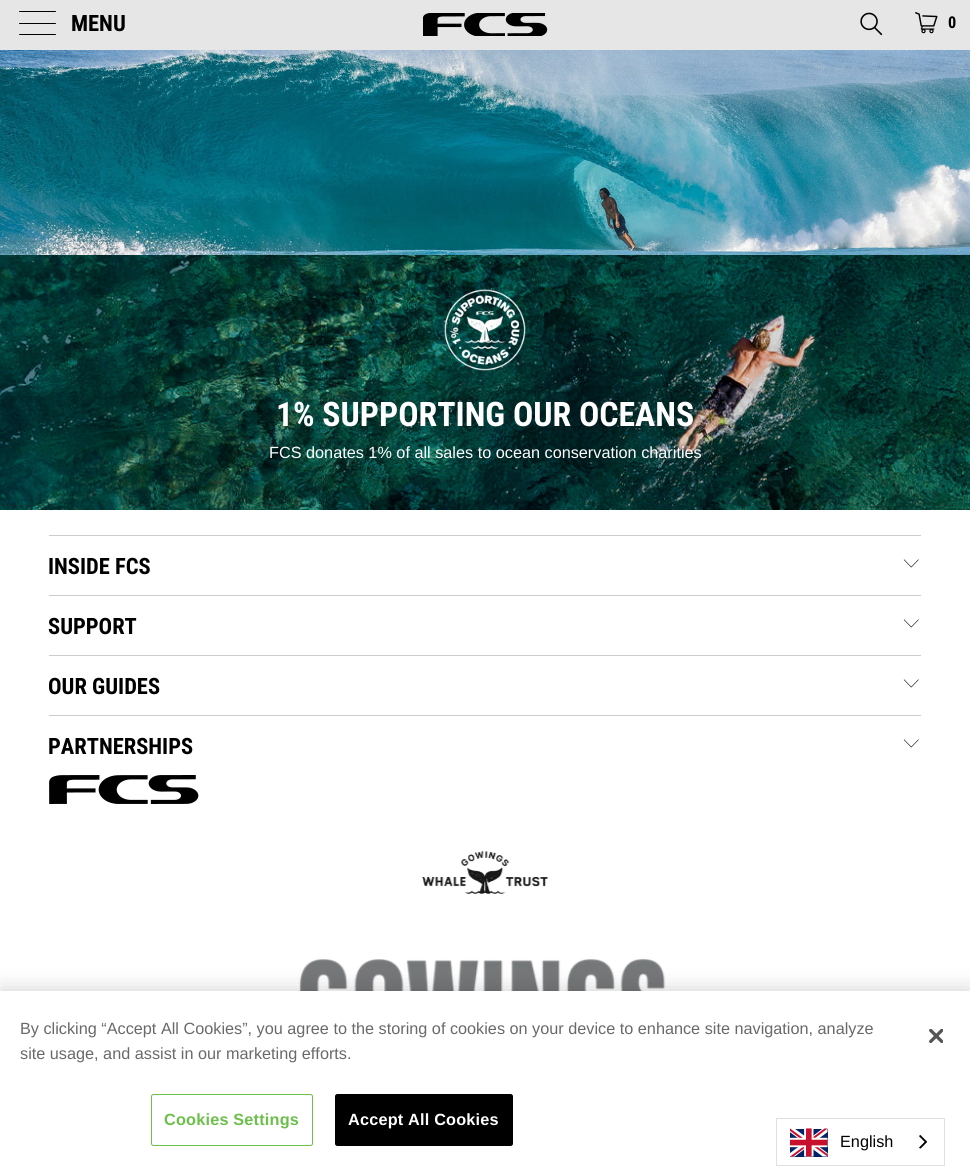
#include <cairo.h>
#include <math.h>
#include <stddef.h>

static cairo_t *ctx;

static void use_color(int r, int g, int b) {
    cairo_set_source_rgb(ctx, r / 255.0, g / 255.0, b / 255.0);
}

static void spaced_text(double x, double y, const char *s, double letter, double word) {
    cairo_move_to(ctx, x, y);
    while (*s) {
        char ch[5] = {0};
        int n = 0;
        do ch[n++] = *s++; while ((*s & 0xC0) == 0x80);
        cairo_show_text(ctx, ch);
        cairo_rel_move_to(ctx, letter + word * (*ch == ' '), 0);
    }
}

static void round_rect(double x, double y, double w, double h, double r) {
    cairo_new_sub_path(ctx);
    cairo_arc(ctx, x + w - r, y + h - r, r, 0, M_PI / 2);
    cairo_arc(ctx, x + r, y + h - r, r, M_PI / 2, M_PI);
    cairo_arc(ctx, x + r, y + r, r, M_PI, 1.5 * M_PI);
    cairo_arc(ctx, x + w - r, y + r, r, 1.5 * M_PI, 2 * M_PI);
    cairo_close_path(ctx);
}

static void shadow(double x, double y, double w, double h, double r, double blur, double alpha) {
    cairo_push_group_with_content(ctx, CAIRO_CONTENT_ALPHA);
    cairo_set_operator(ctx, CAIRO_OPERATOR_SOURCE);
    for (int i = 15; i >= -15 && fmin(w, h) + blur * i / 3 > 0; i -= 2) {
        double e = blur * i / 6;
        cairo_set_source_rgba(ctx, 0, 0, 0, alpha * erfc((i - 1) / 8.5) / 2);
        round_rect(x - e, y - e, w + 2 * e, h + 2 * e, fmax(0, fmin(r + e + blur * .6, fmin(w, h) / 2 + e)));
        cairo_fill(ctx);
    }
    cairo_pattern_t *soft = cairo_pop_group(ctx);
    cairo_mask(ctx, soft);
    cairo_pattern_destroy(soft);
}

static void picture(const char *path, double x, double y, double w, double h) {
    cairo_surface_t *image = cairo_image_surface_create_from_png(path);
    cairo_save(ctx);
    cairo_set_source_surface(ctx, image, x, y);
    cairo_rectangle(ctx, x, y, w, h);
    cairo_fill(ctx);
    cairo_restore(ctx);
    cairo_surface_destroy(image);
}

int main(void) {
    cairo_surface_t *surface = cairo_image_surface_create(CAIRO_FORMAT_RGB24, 970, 1166);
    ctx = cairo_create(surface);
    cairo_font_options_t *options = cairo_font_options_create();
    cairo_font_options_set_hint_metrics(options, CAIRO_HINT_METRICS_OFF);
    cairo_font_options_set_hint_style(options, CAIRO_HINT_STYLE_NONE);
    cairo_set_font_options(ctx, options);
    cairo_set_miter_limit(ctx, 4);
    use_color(255, 255, 255);
    cairo_paint(ctx);
    use_color(230, 230, 230);
    cairo_rectangle(ctx, 0, 0, 970, 50);
    cairo_fill(ctx);
    use_color(0, 0, 0);
    round_rect(19, 11, 37, 1, 0.5);
    cairo_fill(ctx);
    round_rect(19, 23, 37, 1, 0.5);
    cairo_fill(ctx);
    round_rect(19, 34, 37, 1, 0.5);
    cairo_fill(ctx);
    cairo_select_font_face(ctx, "Roboto Condensed", CAIRO_FONT_SLANT_NORMAL, CAIRO_FONT_WEIGHT_BOLD);
    cairo_set_font_size(ctx, 22.5);
    cairo_move_to(ctx, 71, 31);
    cairo_show_text(ctx, "MENU");
    picture("img1.png", 423, 13, 125, 23);
    picture("img2.png", 860, 12, 23, 24);
    picture("img3.png", 915, 12, 23, 22);
    cairo_set_font_size(ctx, 16.25);
    spaced_text(948, 28, "0", 1, 0);
    picture("img4.png", 0, 50, 970, 205);
    picture("img5.png", 0, 255, 970, 255);
    picture("img6.png", 444, 289, 82, 82);
    cairo_set_font_size(ctx, 33.75);
    use_color(255, 255, 255);
    cairo_move_to(ctx, 276, 426);
    cairo_show_text(ctx, "1% SUPPORTING OUR OCEANS");
    cairo_select_font_face(ctx, "Liberation Sans", CAIRO_FONT_SLANT_NORMAL, CAIRO_FONT_WEIGHT_NORMAL);
    cairo_set_font_size(ctx, 16.25);
    cairo_move_to(ctx, 269, 458);
    cairo_show_text(ctx, "FCS donates 1% of all sales to ocean conservation charities");
    use_color(204, 204, 204);
    cairo_rectangle(ctx, 49, 535, 872, 1);
    cairo_fill(ctx);
    cairo_select_font_face(ctx, "Roboto Condensed", CAIRO_FONT_SLANT_NORMAL, CAIRO_FONT_WEIGHT_BOLD);
    cairo_set_font_size(ctx, 22.5);
    use_color(0, 0, 0);
    cairo_move_to(ctx, 48, 574);
    cairo_show_text(ctx, "INSIDE FCS");
    picture("img7.png", 903, 559, 16, 9);
    use_color(204, 204, 204);
    cairo_rectangle(ctx, 49, 595, 872, 1);
    cairo_fill(ctx);
    use_color(0, 0, 0);
    cairo_move_to(ctx, 48, 634);
    cairo_show_text(ctx, "SUPPORT");
    picture("img7.png", 903, 619, 16, 9);
    use_color(204, 204, 204);
    cairo_rectangle(ctx, 49, 655, 872, 1);
    cairo_fill(ctx);
    use_color(0, 0, 0);
    cairo_move_to(ctx, 48, 694);
    cairo_show_text(ctx, "OUR GUIDES");
    picture("img7.png", 903, 679, 16, 9);
    use_color(204, 204, 204);
    cairo_rectangle(ctx, 49, 715, 872, 1);
    cairo_fill(ctx);
    use_color(0, 0, 0);
    cairo_move_to(ctx, 48, 754);
    cairo_show_text(ctx, "PARTNERSHIPS");
    picture("img7.png", 903, 739, 16, 9);
    picture("img8.png", 49, 775, 150, 29);
    picture("img9.png", 422, 851, 127, 43);
    picture("img10.png", 299, 958, 367, 33);
    use_color(0, 0, 0);
    shadow(0, 991, 970, 175, 0, 11, 0.2);
    use_color(255, 255, 255);
    cairo_rectangle(ctx, 0, 991, 970, 175);
    cairo_fill(ctx);
    cairo_select_font_face(ctx, "Liberation Sans", CAIRO_FONT_SLANT_NORMAL, CAIRO_FONT_WEIGHT_NORMAL);
    cairo_set_font_size(ctx, 16.25);
    use_color(105, 105, 105);
    cairo_move_to(ctx, 20, 1034);
    cairo_show_text(ctx, "By clicking “Accept All Cookies”, you agree to the storing of cookies on your device to enhance site navigation, analyze");
    cairo_move_to(ctx, 20, 1059);
    cairo_show_text(ctx, "site usage, and assist in our marketing efforts.");
    picture("img11.png", 929, 1029, 14, 14);
    round_rect(151.5, 1094.5, 161, 51, 2);
    use_color(108, 192, 74);
    cairo_set_line_width(ctx, 1);
    cairo_stroke(ctx);
    cairo_select_font_face(ctx, "Liberation Sans", CAIRO_FONT_SLANT_NORMAL, CAIRO_FONT_WEIGHT_BOLD);
    spaced_text(164, 1125, "Cookies Settings", 0.2, 0);
    use_color(0, 0, 0);
    round_rect(335.5, 1094.5, 177, 51, 2);
    cairo_fill_preserve(ctx);
    cairo_stroke(ctx);
    use_color(255, 255, 255);
    spaced_text(348, 1125, "Accept All Cookies", 0.2, 0);
    cairo_rectangle(ctx, 776.5, 1118.5, 168, 47);
    use_color(224, 224, 224);
    cairo_stroke(ctx);
    picture("img12.png", 790, 1128, 38, 29);
    cairo_select_font_face(ctx, "Liberation Sans", CAIRO_FONT_SLANT_NORMAL, CAIRO_FONT_WEIGHT_NORMAL);
    use_color(0, 0, 0);
    cairo_move_to(ctx, 840, 1147);
    cairo_show_text(ctx, "English");
    picture("img13.png", 919, 1135, 9, 14);
    cairo_surface_write_to_png(surface, "result.png");
    cairo_font_options_destroy(options);
    cairo_destroy(ctx);
    cairo_surface_destroy(surface);
    return 0;
}
